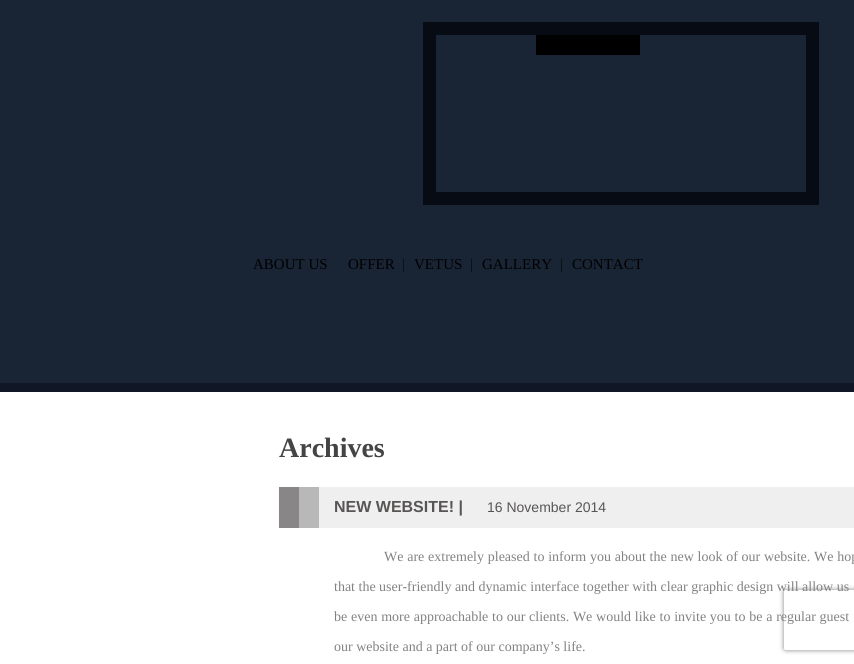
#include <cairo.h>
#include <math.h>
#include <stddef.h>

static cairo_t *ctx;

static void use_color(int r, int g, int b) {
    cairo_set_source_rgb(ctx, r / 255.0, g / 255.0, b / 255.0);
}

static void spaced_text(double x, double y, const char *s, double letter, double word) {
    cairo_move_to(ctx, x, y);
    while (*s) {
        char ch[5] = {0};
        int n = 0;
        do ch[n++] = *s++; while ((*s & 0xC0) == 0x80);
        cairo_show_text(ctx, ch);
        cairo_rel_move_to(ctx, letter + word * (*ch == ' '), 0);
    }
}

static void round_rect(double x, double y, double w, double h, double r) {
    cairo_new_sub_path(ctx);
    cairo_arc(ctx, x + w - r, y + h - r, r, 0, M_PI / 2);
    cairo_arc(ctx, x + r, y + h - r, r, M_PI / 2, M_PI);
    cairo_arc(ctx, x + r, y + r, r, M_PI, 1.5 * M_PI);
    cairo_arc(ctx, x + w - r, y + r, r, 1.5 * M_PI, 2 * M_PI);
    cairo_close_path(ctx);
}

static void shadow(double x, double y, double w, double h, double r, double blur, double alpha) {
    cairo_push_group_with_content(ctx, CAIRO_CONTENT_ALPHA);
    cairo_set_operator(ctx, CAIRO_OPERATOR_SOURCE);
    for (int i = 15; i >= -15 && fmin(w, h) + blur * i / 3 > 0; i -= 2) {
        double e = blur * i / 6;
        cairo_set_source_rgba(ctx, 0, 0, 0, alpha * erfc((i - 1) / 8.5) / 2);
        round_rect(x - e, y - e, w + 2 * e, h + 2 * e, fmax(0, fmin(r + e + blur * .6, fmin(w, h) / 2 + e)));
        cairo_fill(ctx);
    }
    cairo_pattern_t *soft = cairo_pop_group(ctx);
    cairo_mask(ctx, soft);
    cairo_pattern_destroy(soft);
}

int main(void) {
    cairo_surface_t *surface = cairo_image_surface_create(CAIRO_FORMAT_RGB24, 854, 664);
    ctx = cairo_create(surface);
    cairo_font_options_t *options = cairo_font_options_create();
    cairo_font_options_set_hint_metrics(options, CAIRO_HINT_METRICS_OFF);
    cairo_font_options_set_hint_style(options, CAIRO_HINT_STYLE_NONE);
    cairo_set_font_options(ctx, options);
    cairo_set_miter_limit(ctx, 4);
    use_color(25, 36, 53);
    cairo_paint(ctx);
    cairo_rectangle(ctx, 429.5, 28.5, 383, 170);
    use_color(7, 11, 19);
    cairo_set_line_width(ctx, 13);
    cairo_stroke(ctx);
    use_color(0, 0, 0);
    cairo_rectangle(ctx, 536, 35, 104, 20);
    cairo_fill(ctx);
    cairo_select_font_face(ctx, "Liberation Serif", CAIRO_FONT_SLANT_NORMAL, CAIRO_FONT_WEIGHT_NORMAL);
    cairo_set_font_size(ctx, 15);
    cairo_move_to(ctx, 253, 269);
    cairo_show_text(ctx, "ABOUT US");
    cairo_move_to(ctx, 348, 269);
    cairo_show_text(ctx, "OFFER");
    use_color(7, 11, 19);
    cairo_move_to(ctx, 402, 269);
    cairo_show_text(ctx, "|");
    use_color(0, 0, 0);
    cairo_move_to(ctx, 414, 269);
    cairo_show_text(ctx, "VETUS");
    use_color(7, 11, 19);
    cairo_move_to(ctx, 470, 269);
    cairo_show_text(ctx, "|");
    use_color(0, 0, 0);
    cairo_move_to(ctx, 482, 269);
    cairo_show_text(ctx, "GALLERY");
    use_color(7, 11, 19);
    cairo_move_to(ctx, 560, 269);
    cairo_show_text(ctx, "|");
    use_color(0, 0, 0);
    cairo_move_to(ctx, 572, 269);
    cairo_show_text(ctx, "CONTACT");
    use_color(255, 255, 255);
    cairo_rectangle(ctx, 0, 392, 854, 272);
    cairo_fill(ctx);
    use_color(16, 22, 37);
    cairo_rectangle(ctx, 0, 383, 854, 9);
    cairo_fill(ctx);
    cairo_select_font_face(ctx, "Liberation Serif", CAIRO_FONT_SLANT_NORMAL, CAIRO_FONT_WEIGHT_BOLD);
    cairo_set_font_size(ctx, 28);
    use_color(68, 68, 68);
    cairo_move_to(ctx, 279, 457);
    cairo_show_text(ctx, "Archives");
    use_color(239, 239, 239);
    cairo_rectangle(ctx, 319, 487, 535, 41);
    cairo_fill(ctx);
    use_color(136, 134, 134);
    cairo_rectangle(ctx, 279, 487, 20, 41);
    cairo_fill(ctx);
    use_color(184, 184, 184);
    cairo_rectangle(ctx, 299, 487, 20, 41);
    cairo_fill(ctx);
    cairo_select_font_face(ctx, "Liberation Sans", CAIRO_FONT_SLANT_NORMAL, CAIRO_FONT_WEIGHT_BOLD);
    cairo_set_font_size(ctx, 16);
    use_color(88, 85, 85);
    cairo_move_to(ctx, 334, 512);
    cairo_show_text(ctx, "NEW WEBSITE! |");
    cairo_select_font_face(ctx, "Liberation Sans", CAIRO_FONT_SLANT_NORMAL, CAIRO_FONT_WEIGHT_NORMAL);
    cairo_set_font_size(ctx, 14);
    cairo_move_to(ctx, 487, 512);
    cairo_show_text(ctx, "16 November 2014");
    cairo_select_font_face(ctx, "Liberation Serif", CAIRO_FONT_SLANT_NORMAL, CAIRO_FONT_WEIGHT_NORMAL);
    use_color(130, 130, 130);
    spaced_text(384, 561, "We are extremely pleased to inform you about the new look of our website. We hop", 0, 0.25);
    cairo_move_to(ctx, 334, 591);
    cairo_show_text(ctx, "that the user-friendly and dynamic interface together with clear graphic design will allow us");
    spaced_text(334, 621, "be even more approachable to our clients. We would like to invite you to be a regular guest", 0, 0.25);
    cairo_move_to(ctx, 334, 651);
    cairo_show_text(ctx, "our website and a part of our company’s life.");
    cairo_save(ctx);
    cairo_set_fill_rule(ctx, CAIRO_FILL_RULE_EVEN_ODD);
    cairo_new_path(ctx);
    cairo_move_to(ctx, 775, 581);
    cairo_line_to(ctx, 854, 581);
    cairo_line_to(ctx, 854, 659);
    cairo_line_to(ctx, 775, 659);
    cairo_close_path(ctx);
    cairo_move_to(ctx, 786, 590);
    cairo_line_to(ctx, 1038, 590);
    cairo_curve_to(ctx, 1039, 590, 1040, 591, 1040, 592);
    cairo_line_to(ctx, 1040, 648);
    cairo_curve_to(ctx, 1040, 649, 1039, 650, 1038, 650);
    cairo_line_to(ctx, 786, 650);
    cairo_curve_to(ctx, 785, 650, 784, 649, 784, 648);
    cairo_line_to(ctx, 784, 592);
    cairo_curve_to(ctx, 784, 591, 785, 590, 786, 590);
    cairo_close_path(ctx);
    cairo_clip(ctx);
    use_color(128, 128, 128);
    shadow(784, 590, 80, 60, 2, 2.5, 1);
    cairo_restore(ctx);
    cairo_surface_write_to_png(surface, "result.png");
    cairo_font_options_destroy(options);
    cairo_destroy(ctx);
    cairo_surface_destroy(surface);
    return 0;
}
